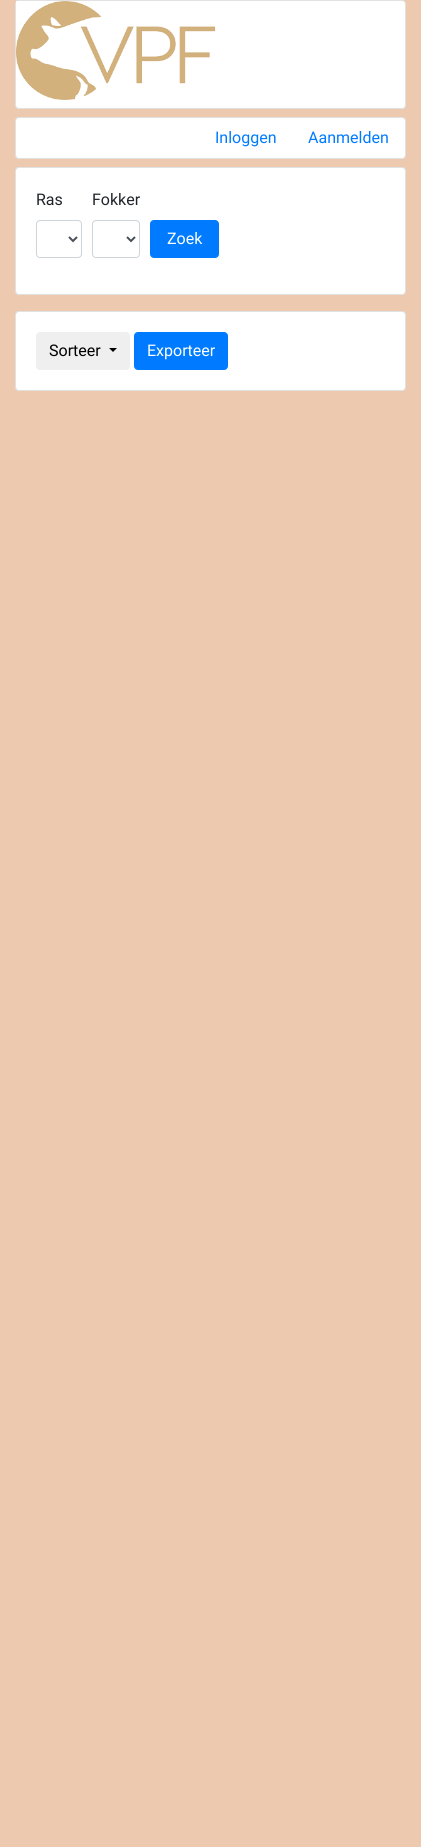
#include <cairo.h>
#include <math.h>
#include <stddef.h>

static cairo_t *ctx;

static void use_color(int r, int g, int b) {
    cairo_set_source_rgb(ctx, r / 255.0, g / 255.0, b / 255.0);
}

static void round_rect(double x, double y, double w, double h, double r) {
    cairo_new_sub_path(ctx);
    cairo_arc(ctx, x + w - r, y + h - r, r, 0, M_PI / 2);
    cairo_arc(ctx, x + r, y + h - r, r, M_PI / 2, M_PI);
    cairo_arc(ctx, x + r, y + r, r, M_PI, 1.5 * M_PI);
    cairo_arc(ctx, x + w - r, y + r, r, 1.5 * M_PI, 2 * M_PI);
    cairo_close_path(ctx);
}

static void picture(const char *path, double x, double y, double w, double h) {
    cairo_surface_t *image = cairo_image_surface_create_from_png(path);
    cairo_save(ctx);
    cairo_set_source_surface(ctx, image, x, y);
    cairo_rectangle(ctx, x, y, w, h);
    cairo_fill(ctx);
    cairo_restore(ctx);
    cairo_surface_destroy(image);
}

int main(void) {
    cairo_surface_t *surface = cairo_image_surface_create(CAIRO_FORMAT_RGB24, 421, 1847);
    ctx = cairo_create(surface);
    cairo_font_options_t *options = cairo_font_options_create();
    cairo_font_options_set_hint_metrics(options, CAIRO_HINT_METRICS_OFF);
    cairo_font_options_set_hint_style(options, CAIRO_HINT_STYLE_NONE);
    cairo_set_font_options(ctx, options);
    cairo_set_miter_limit(ctx, 4);
    use_color(237, 201, 175);
    cairo_paint(ctx);
    use_color(255, 255, 255);
    round_rect(15, 0, 391, 109, 4);
    cairo_fill(ctx);
    round_rect(15.5, 0.5, 390, 108, 3.5);
    cairo_set_source_rgba(ctx, 0, 0, 0, 0.12);
    cairo_set_line_width(ctx, 1);
    cairo_stroke(ctx);
    picture("img1.png", 16, 1, 200, 99);
    use_color(255, 255, 255);
    round_rect(15, 117, 391, 42, 4);
    cairo_fill(ctx);
    round_rect(15.5, 117.5, 390, 41, 3.5);
    cairo_set_source_rgba(ctx, 0, 0, 0, 0.12);
    cairo_stroke(ctx);
    cairo_select_font_face(ctx, "Roboto", CAIRO_FONT_SLANT_NORMAL, CAIRO_FONT_WEIGHT_NORMAL);
    cairo_set_font_size(ctx, 16);
    use_color(0, 123, 255);
    cairo_move_to(ctx, 215, 143);
    cairo_show_text(ctx, "Inloggen");
    cairo_move_to(ctx, 308, 143);
    cairo_show_text(ctx, "Aanmelden");
    use_color(255, 255, 255);
    round_rect(15, 167, 391, 128, 4);
    cairo_fill(ctx);
    round_rect(15.5, 167.5, 390, 127, 3.5);
    cairo_set_source_rgba(ctx, 0, 0, 0, 0.12);
    cairo_stroke(ctx);
    use_color(33, 37, 41);
    cairo_move_to(ctx, 36, 205);
    cairo_show_text(ctx, "Ras");
    round_rect(36.5, 220.5, 45, 37, 3.5);
    use_color(206, 212, 218);
    cairo_stroke(ctx);
    cairo_new_path(ctx);
    cairo_move_to(ctx, 69, 237);
    cairo_line_to(ctx, 73, 241);
    cairo_line_to(ctx, 77, 237);
    use_color(73, 80, 87);
    cairo_set_line_width(ctx, 2);
    cairo_stroke(ctx);
    use_color(33, 37, 41);
    cairo_move_to(ctx, 92, 205);
    cairo_show_text(ctx, "Fokker");
    round_rect(92.5, 220.5, 47, 37, 3.5);
    use_color(206, 212, 218);
    cairo_set_line_width(ctx, 1);
    cairo_stroke(ctx);
    cairo_new_path(ctx);
    cairo_move_to(ctx, 127, 237);
    cairo_line_to(ctx, 131, 241);
    cairo_line_to(ctx, 135, 237);
    use_color(73, 80, 87);
    cairo_set_line_width(ctx, 2);
    cairo_stroke(ctx);
    use_color(0, 123, 255);
    round_rect(150.5, 220.5, 68, 37, 3.5);
    cairo_fill_preserve(ctx);
    cairo_set_line_width(ctx, 1);
    cairo_stroke(ctx);
    use_color(255, 255, 255);
    cairo_move_to(ctx, 167, 244);
    cairo_show_text(ctx, "Zoek");
    round_rect(15, 311, 391, 80, 4);
    cairo_fill(ctx);
    round_rect(15.5, 311.5, 390, 79, 3.5);
    cairo_set_source_rgba(ctx, 0, 0, 0, 0.12);
    cairo_stroke(ctx);
    use_color(239, 239, 239);
    round_rect(36, 332, 94, 38, 4);
    cairo_fill(ctx);
    use_color(0, 0, 0);
    cairo_move_to(ctx, 49, 356);
    cairo_show_text(ctx, "Sorteer");
    cairo_new_path(ctx);
    cairo_move_to(ctx, 109, 348);
    cairo_line_to(ctx, 117, 348);
    cairo_line_to(ctx, 113, 352);
    cairo_close_path(ctx);
    cairo_fill(ctx);
    use_color(0, 123, 255);
    round_rect(134.5, 332.5, 93, 37, 3.5);
    cairo_fill_preserve(ctx);
    cairo_stroke(ctx);
    use_color(255, 255, 255);
    cairo_move_to(ctx, 147, 356);
    cairo_show_text(ctx, "Exporteer");
    cairo_surface_write_to_png(surface, "result.png");
    cairo_font_options_destroy(options);
    cairo_destroy(ctx);
    cairo_surface_destroy(surface);
    return 0;
}
